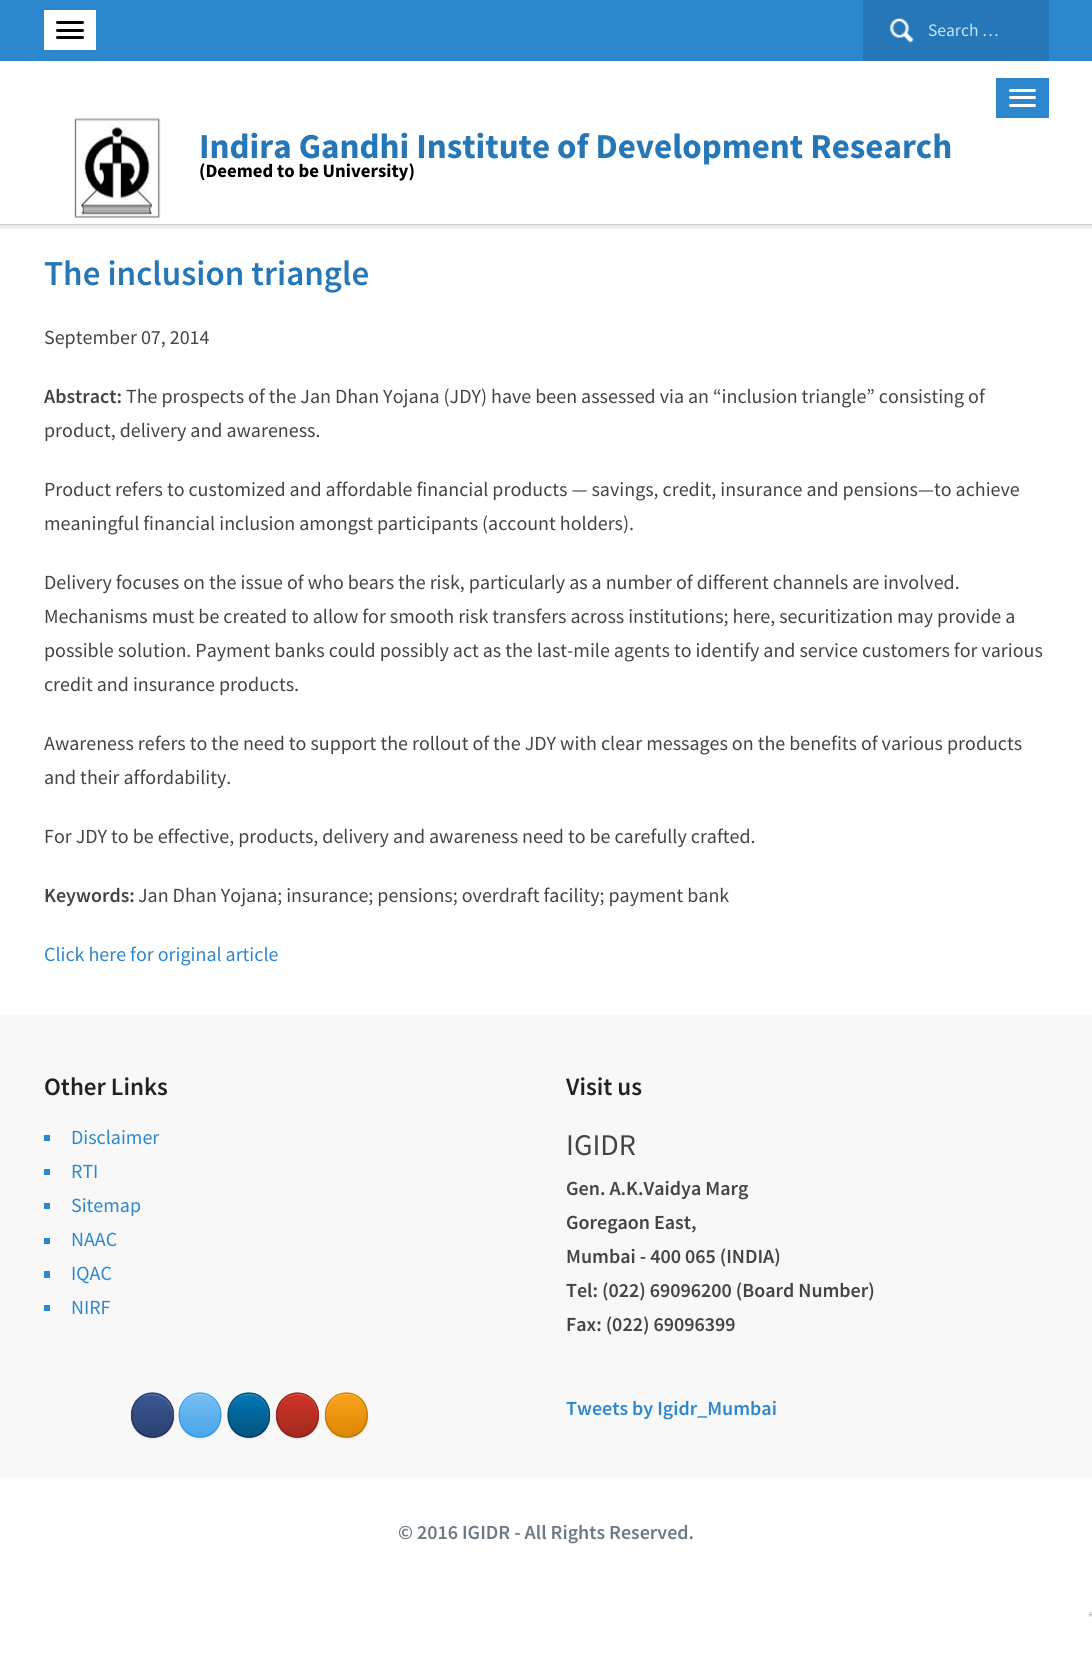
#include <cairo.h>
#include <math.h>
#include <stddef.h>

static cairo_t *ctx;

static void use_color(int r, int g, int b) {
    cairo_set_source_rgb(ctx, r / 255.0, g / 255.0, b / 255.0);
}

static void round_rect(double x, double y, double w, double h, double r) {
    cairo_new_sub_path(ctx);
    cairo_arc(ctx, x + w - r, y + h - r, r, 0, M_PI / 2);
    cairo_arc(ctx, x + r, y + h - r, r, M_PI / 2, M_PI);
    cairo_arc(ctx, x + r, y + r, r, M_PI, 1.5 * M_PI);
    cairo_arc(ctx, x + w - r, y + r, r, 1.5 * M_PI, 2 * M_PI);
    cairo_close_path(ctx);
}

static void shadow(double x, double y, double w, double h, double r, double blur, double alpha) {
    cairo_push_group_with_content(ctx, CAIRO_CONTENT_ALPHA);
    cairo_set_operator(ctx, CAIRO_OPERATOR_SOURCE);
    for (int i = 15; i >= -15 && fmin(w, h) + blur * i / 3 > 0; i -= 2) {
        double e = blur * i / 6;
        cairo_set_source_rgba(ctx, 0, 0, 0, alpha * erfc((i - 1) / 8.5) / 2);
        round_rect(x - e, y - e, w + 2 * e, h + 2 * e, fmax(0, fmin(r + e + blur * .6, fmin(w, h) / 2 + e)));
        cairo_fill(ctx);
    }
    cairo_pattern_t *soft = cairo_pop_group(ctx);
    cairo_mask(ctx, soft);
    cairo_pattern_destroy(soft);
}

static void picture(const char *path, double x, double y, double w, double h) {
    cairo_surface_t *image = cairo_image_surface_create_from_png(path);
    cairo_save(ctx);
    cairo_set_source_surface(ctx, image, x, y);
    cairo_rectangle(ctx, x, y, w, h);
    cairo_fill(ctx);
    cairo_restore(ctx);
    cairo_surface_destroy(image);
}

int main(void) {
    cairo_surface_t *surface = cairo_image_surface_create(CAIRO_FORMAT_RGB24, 1092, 1653);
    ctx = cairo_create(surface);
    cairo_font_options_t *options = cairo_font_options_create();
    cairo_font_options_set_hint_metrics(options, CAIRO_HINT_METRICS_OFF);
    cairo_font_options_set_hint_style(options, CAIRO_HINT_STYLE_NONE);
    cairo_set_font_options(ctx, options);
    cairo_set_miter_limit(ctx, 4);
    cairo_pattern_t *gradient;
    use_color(255, 255, 255);
    cairo_paint(ctx);
    cairo_save(ctx);
    cairo_rectangle(ctx, 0, 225, 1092, 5);
    cairo_clip(ctx);
    use_color(0, 0, 0);
    shadow(-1, 61, 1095, 167, 0, 2, 0.1);
    cairo_restore(ctx);
    use_color(45, 135, 204);
    cairo_rectangle(ctx, 0, 0, 1092, 61);
    cairo_fill(ctx);
    use_color(255, 255, 255);
    cairo_rectangle(ctx, 44, 10, 52, 40);
    cairo_fill(ctx);
    use_color(2, 2, 6);
    round_rect(56, 21, 28, 3, 1.5);
    cairo_fill(ctx);
    round_rect(56, 29, 28, 3, 1.5);
    cairo_fill(ctx);
    round_rect(56, 36, 28, 3, 1.5);
    cairo_fill(ctx);
    use_color(37, 119, 183);
    cairo_rectangle(ctx, 863, 0, 186, 61);
    cairo_fill(ctx);
    picture("img1.png", 890, 18, 24, 25);
    cairo_select_font_face(ctx, "Source Sans Pro", CAIRO_FONT_SLANT_NORMAL, CAIRO_FONT_WEIGHT_NORMAL);
    cairo_set_font_size(ctx, 17.5);
    use_color(196, 229, 255);
    cairo_move_to(ctx, 928, 36);
    cairo_show_text(ctx, "Search …");
    use_color(204, 204, 204);
    cairo_rectangle(ctx, 0, 224, 1092, 1);
    cairo_fill(ctx);
    use_color(45, 135, 204);
    cairo_rectangle(ctx, 996, 78, 53, 40);
    cairo_fill(ctx);
    use_color(255, 255, 255);
    round_rect(1009, 89, 27, 3, 1.5);
    cairo_fill(ctx);
    round_rect(1009, 96, 27, 3, 1.5);
    cairo_fill(ctx);
    round_rect(1009, 104, 27, 3, 1.5);
    cairo_fill(ctx);
    picture("img2.png", 74, 118, 87, 100);
    cairo_select_font_face(ctx, "Source Sans Pro", CAIRO_FONT_SLANT_NORMAL, CAIRO_FONT_WEIGHT_BOLD);
    cairo_set_font_size(ctx, 35);
    use_color(37, 119, 183);
    cairo_move_to(ctx, 199, 158);
    cairo_show_text(ctx, "Indira Gandhi Institute of Development Research");
    cairo_set_font_size(ctx, 18.75);
    use_color(0, 0, 0);
    cairo_move_to(ctx, 199, 177);
    cairo_show_text(ctx, "(Deemed to be University)");
    cairo_select_font_face(ctx, "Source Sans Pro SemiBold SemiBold", CAIRO_FONT_SLANT_NORMAL, CAIRO_FONT_WEIGHT_NORMAL);
    cairo_set_font_size(ctx, 35);
    use_color(37, 119, 183);
    cairo_move_to(ctx, 44, 285);
    cairo_show_text(ctx, "The inclusion triangle");
    cairo_select_font_face(ctx, "Source Sans Pro", CAIRO_FONT_SLANT_NORMAL, CAIRO_FONT_WEIGHT_NORMAL);
    cairo_set_font_size(ctx, 20);
    use_color(68, 68, 68);
    cairo_move_to(ctx, 44, 344);
    cairo_show_text(ctx, "September 07, 2014");
    cairo_select_font_face(ctx, "Source Sans Pro SemiBold SemiBold", CAIRO_FONT_SLANT_NORMAL, CAIRO_FONT_WEIGHT_NORMAL);
    cairo_move_to(ctx, 44, 403);
    cairo_show_text(ctx, "Abstract:");
    cairo_select_font_face(ctx, "Source Sans Pro", CAIRO_FONT_SLANT_NORMAL, CAIRO_FONT_WEIGHT_NORMAL);
    cairo_move_to(ctx, 126, 403);
    cairo_show_text(ctx, "The prospects of the Jan Dhan Yojana (JDY) have been assessed via an “inclusion triangle” consisting of");
    cairo_move_to(ctx, 44, 437);
    cairo_show_text(ctx, "product, delivery and awareness.");
    cairo_move_to(ctx, 44, 496);
    cairo_show_text(ctx, "Product refers to customized and affordable financial products — savings, credit, insurance and pensions—to achieve");
    cairo_move_to(ctx, 44, 530);
    cairo_show_text(ctx, "meaningful financial inclusion amongst participants (account holders).");
    cairo_move_to(ctx, 44, 589);
    cairo_show_text(ctx, "Delivery focuses on the issue of who bears the risk, particularly as a number of different channels are involved.");
    cairo_move_to(ctx, 44, 623);
    cairo_show_text(ctx, "Mechanisms must be created to allow for smooth risk transfers across institutions; here, securitization may provide a");
    cairo_move_to(ctx, 44, 657);
    cairo_show_text(ctx, "possible solution. Payment banks could possibly act as the last-mile agents to identify and service customers for various");
    cairo_move_to(ctx, 44, 691);
    cairo_show_text(ctx, "credit and insurance products.");
    cairo_move_to(ctx, 44, 750);
    cairo_show_text(ctx, "Awareness refers to the need to support the rollout of the JDY with clear messages on the benefits of various products");
    cairo_move_to(ctx, 44, 784);
    cairo_show_text(ctx, "and their affordability.");
    cairo_move_to(ctx, 44, 843);
    cairo_show_text(ctx, "For JDY to be effective, products, delivery and awareness need to be carefully crafted.");
    cairo_select_font_face(ctx, "Source Sans Pro SemiBold SemiBold", CAIRO_FONT_SLANT_NORMAL, CAIRO_FONT_WEIGHT_NORMAL);
    cairo_move_to(ctx, 44, 902);
    cairo_show_text(ctx, "Keywords:");
    cairo_select_font_face(ctx, "Source Sans Pro", CAIRO_FONT_SLANT_NORMAL, CAIRO_FONT_WEIGHT_NORMAL);
    cairo_move_to(ctx, 138, 902);
    cairo_show_text(ctx, "Jan Dhan Yojana; insurance; pensions; overdraft facility; payment bank");
    use_color(45, 135, 204);
    cairo_move_to(ctx, 44, 961);
    cairo_show_text(ctx, "Click here for original article");
    use_color(248, 248, 248);
    cairo_rectangle(ctx, 0, 1015, 1092, 463);
    cairo_fill(ctx);
    cairo_select_font_face(ctx, "Source Sans Pro SemiBold SemiBold", CAIRO_FONT_SLANT_NORMAL, CAIRO_FONT_WEIGHT_NORMAL);
    cairo_set_font_size(ctx, 25);
    use_color(34, 34, 34);
    cairo_move_to(ctx, 44, 1095);
    cairo_show_text(ctx, "Other Links");
    use_color(45, 135, 204);
    cairo_rectangle(ctx, 44, 1135, 6, 6);
    cairo_fill(ctx);
    cairo_select_font_face(ctx, "Source Sans Pro", CAIRO_FONT_SLANT_NORMAL, CAIRO_FONT_WEIGHT_NORMAL);
    cairo_set_font_size(ctx, 20);
    cairo_move_to(ctx, 71, 1144);
    cairo_show_text(ctx, "Disclaimer");
    cairo_rectangle(ctx, 44, 1169, 6, 6);
    cairo_fill(ctx);
    cairo_move_to(ctx, 71, 1178);
    cairo_show_text(ctx, "RTI");
    cairo_rectangle(ctx, 44, 1203, 6, 6);
    cairo_fill(ctx);
    cairo_move_to(ctx, 71, 1212);
    cairo_show_text(ctx, "Sitemap");
    cairo_rectangle(ctx, 44, 1238, 6, 6);
    cairo_fill(ctx);
    cairo_move_to(ctx, 71, 1246);
    cairo_show_text(ctx, "NAAC");
    cairo_rectangle(ctx, 44, 1271, 6, 7);
    cairo_fill(ctx);
    cairo_move_to(ctx, 71, 1280);
    cairo_show_text(ctx, "IQAC");
    cairo_rectangle(ctx, 44, 1305, 6, 6);
    cairo_fill(ctx);
    cairo_move_to(ctx, 71, 1314);
    cairo_show_text(ctx, "NIRF");
    cairo_select_font_face(ctx, "Source Sans Pro SemiBold SemiBold", CAIRO_FONT_SLANT_NORMAL, CAIRO_FONT_WEIGHT_NORMAL);
    cairo_set_font_size(ctx, 25);
    use_color(34, 34, 34);
    cairo_move_to(ctx, 566, 1095);
    cairo_show_text(ctx, "Visit us");
    cairo_select_font_face(ctx, "Source Sans Pro", CAIRO_FONT_SLANT_NORMAL, CAIRO_FONT_WEIGHT_NORMAL);
    cairo_set_font_size(ctx, 30);
    use_color(68, 68, 68);
    cairo_move_to(ctx, 566, 1155);
    cairo_show_text(ctx, "IGIDR");
    cairo_select_font_face(ctx, "Source Sans Pro SemiBold SemiBold", CAIRO_FONT_SLANT_NORMAL, CAIRO_FONT_WEIGHT_NORMAL);
    cairo_set_font_size(ctx, 20);
    cairo_move_to(ctx, 566, 1195);
    cairo_show_text(ctx, "Gen. A.K.Vaidya Marg");
    cairo_move_to(ctx, 566, 1229);
    cairo_show_text(ctx, "Goregaon East,");
    cairo_move_to(ctx, 566, 1263);
    cairo_show_text(ctx, "Mumbai - 400 065 (INDIA)");
    cairo_move_to(ctx, 566, 1297);
    cairo_show_text(ctx, "Tel: (022) 69096200 (Board Number)");
    cairo_move_to(ctx, 566, 1331);
    cairo_show_text(ctx, "Fax: (022) 69096399");
    use_color(0, 0, 0);
    shadow(131, 1394, 43, 45, 21.5, 1, 0.07);
    cairo_save(ctx);
    round_rect(131, 1393, 43, 45, 21.5);
    cairo_clip(ctx);
    gradient = cairo_pattern_create_linear(133, 1394, 133, 1351);
    cairo_pattern_add_color_stop_rgba(gradient, 0, 0.173, 0.259, 0.439, 1);
    cairo_pattern_add_color_stop_rgba(gradient, 1, 0.227, 0.341, 0.584, 1);
    cairo_set_source(ctx, gradient);
    cairo_pattern_destroy(gradient);
    cairo_rectangle(ctx, 146, 1393, 13, 1);
    cairo_fill(ctx);
    gradient = cairo_pattern_create_linear(133, 1436, 133, 1394);
    cairo_pattern_add_color_stop_rgba(gradient, 0, 0.173, 0.259, 0.439, 1);
    cairo_pattern_add_color_stop_rgba(gradient, 1, 0.227, 0.341, 0.584, 1);
    cairo_set_source(ctx, gradient);
    cairo_pattern_destroy(gradient);
    cairo_rectangle(ctx, 131, 1394, 43, 42);
    cairo_fill(ctx);
    gradient = cairo_pattern_create_linear(133, 1479, 133, 1436);
    cairo_pattern_add_color_stop_rgba(gradient, 0, 0.173, 0.259, 0.439, 1);
    cairo_pattern_add_color_stop_rgba(gradient, 1, 0.227, 0.341, 0.584, 1);
    cairo_set_source(ctx, gradient);
    cairo_pattern_destroy(gradient);
    cairo_rectangle(ctx, 143, 1436, 19, 2);
    cairo_fill(ctx);
    cairo_restore(ctx);
    cairo_set_source_rgba(ctx, 1, 1, 1, 0.2);
    cairo_new_path(ctx);
    cairo_move_to(ctx, 152, 1395);
    cairo_curve_to(ctx, 169, 1395, 176, 1413, 171, 1426);
    cairo_curve_to(ctx, 172, 1422, 173, 1418, 173, 1414);
    cairo_curve_to(ctx, 171, 1391, 140, 1387, 134, 1408);
    cairo_curve_to(ctx, 136, 1401, 142, 1395, 152, 1395);
    cairo_close_path(ctx);
    cairo_fill(ctx);
    cairo_new_path(ctx);
    cairo_move_to(ctx, 138, 1399);
    cairo_curve_to(ctx, 146, 1391, 159, 1391, 167, 1399);
    use_color(39, 59, 101);
    cairo_set_line_width(ctx, 1.2);
    cairo_stroke(ctx);
    cairo_new_path(ctx);
    cairo_move_to(ctx, 167, 1399);
    cairo_curve_to(ctx, 175.5, 1407.5, 175.5, 1422.5, 167, 1431);
    use_color(37, 55, 94);
    cairo_stroke(ctx);
    cairo_new_path(ctx);
    cairo_move_to(ctx, 167, 1431);
    cairo_curve_to(ctx, 159, 1439, 146, 1439, 138, 1431);
    use_color(32, 48, 83);
    cairo_stroke(ctx);
    cairo_new_path(ctx);
    cairo_move_to(ctx, 138, 1431);
    cairo_curve_to(ctx, 129.5, 1422.5, 129.5, 1407.5, 138, 1399);
    use_color(37, 55, 94);
    cairo_stroke(ctx);
    use_color(0, 0, 0);
    shadow(179, 1394, 42, 45, 21, 1, 0.07);
    cairo_save(ctx);
    round_rect(179, 1393, 42, 45, 21);
    cairo_clip(ctx);
    gradient = cairo_pattern_create_linear(180, 1394, 180, 1351);
    cairo_pattern_add_color_stop_rgba(gradient, 0, 0.29, 0.651, 0.925, 1);
    cairo_pattern_add_color_stop_rgba(gradient, 1, 0.471, 0.741, 0.945, 1);
    cairo_set_source(ctx, gradient);
    cairo_pattern_destroy(gradient);
    cairo_rectangle(ctx, 193, 1393, 14, 1);
    cairo_fill(ctx);
    gradient = cairo_pattern_create_linear(180, 1436, 180, 1394);
    cairo_pattern_add_color_stop_rgba(gradient, 0, 0.29, 0.651, 0.925, 1);
    cairo_pattern_add_color_stop_rgba(gradient, 1, 0.471, 0.741, 0.945, 1);
    cairo_set_source(ctx, gradient);
    cairo_pattern_destroy(gradient);
    cairo_rectangle(ctx, 179, 1394, 42, 42);
    cairo_fill(ctx);
    gradient = cairo_pattern_create_linear(180, 1479, 180, 1436);
    cairo_pattern_add_color_stop_rgba(gradient, 0, 0.29, 0.651, 0.925, 1);
    cairo_pattern_add_color_stop_rgba(gradient, 1, 0.471, 0.741, 0.945, 1);
    cairo_set_source(ctx, gradient);
    cairo_pattern_destroy(gradient);
    cairo_rectangle(ctx, 191, 1436, 18, 2);
    cairo_fill(ctx);
    cairo_restore(ctx);
    cairo_set_source_rgba(ctx, 1, 1, 1, 0.2);
    cairo_new_path(ctx);
    cairo_move_to(ctx, 200, 1395);
    cairo_curve_to(ctx, 212, 1395, 218.5, 1403.5, 220, 1412.5);
    cairo_curve_to(ctx, 219, 1402, 210.5, 1394, 200, 1394);
    cairo_curve_to(ctx, 189.5, 1394, 181, 1402, 180, 1412.5);
    cairo_curve_to(ctx, 181.5, 1403.5, 188, 1395, 200, 1395);
    cairo_close_path(ctx);
    cairo_fill(ctx);
    cairo_new_path(ctx);
    cairo_move_to(ctx, 185.5, 1399);
    cairo_curve_to(ctx, 193.5, 1391, 206.5, 1391, 214.5, 1399);
    use_color(60, 160, 235);
    cairo_stroke(ctx);
    cairo_new_path(ctx);
    cairo_move_to(ctx, 214.5, 1399);
    cairo_curve_to(ctx, 223, 1407.5, 223, 1422.5, 214.5, 1431);
    use_color(51, 155, 234);
    cairo_stroke(ctx);
    cairo_new_path(ctx);
    cairo_move_to(ctx, 214.5, 1431);
    cairo_curve_to(ctx, 206.5, 1439, 193.5, 1439, 185.5, 1431);
    use_color(37, 148, 232);
    cairo_stroke(ctx);
    cairo_new_path(ctx);
    cairo_move_to(ctx, 185.5, 1431);
    cairo_curve_to(ctx, 177, 1422.5, 177, 1407.5, 185.5, 1399);
    use_color(51, 155, 234);
    cairo_stroke(ctx);
    use_color(0, 0, 0);
    shadow(228, 1394, 42, 45, 21, 1, 0.07);
    cairo_save(ctx);
    round_rect(228, 1393, 42, 45, 21);
    cairo_clip(ctx);
    gradient = cairo_pattern_create_linear(229, 1394, 229, 1351);
    cairo_pattern_add_color_stop_rgba(gradient, 0, 0.004, 0.333, 0.506, 1);
    cairo_pattern_add_color_stop_rgba(gradient, 1, 0.004, 0.467, 0.706, 1);
    cairo_set_source(ctx, gradient);
    cairo_pattern_destroy(gradient);
    cairo_rectangle(ctx, 242, 1393, 14, 1);
    cairo_fill(ctx);
    gradient = cairo_pattern_create_linear(229, 1436, 229, 1394);
    cairo_pattern_add_color_stop_rgba(gradient, 0, 0.004, 0.333, 0.506, 1);
    cairo_pattern_add_color_stop_rgba(gradient, 1, 0.004, 0.467, 0.706, 1);
    cairo_set_source(ctx, gradient);
    cairo_pattern_destroy(gradient);
    cairo_rectangle(ctx, 228, 1394, 42, 42);
    cairo_fill(ctx);
    gradient = cairo_pattern_create_linear(229, 1479, 229, 1436);
    cairo_pattern_add_color_stop_rgba(gradient, 0, 0.004, 0.333, 0.506, 1);
    cairo_pattern_add_color_stop_rgba(gradient, 1, 0.004, 0.467, 0.706, 1);
    cairo_set_source(ctx, gradient);
    cairo_pattern_destroy(gradient);
    cairo_rectangle(ctx, 240, 1436, 18, 2);
    cairo_fill(ctx);
    cairo_restore(ctx);
    cairo_set_source_rgba(ctx, 1, 1, 1, 0.2);
    cairo_new_path(ctx);
    cairo_move_to(ctx, 249, 1395);
    cairo_curve_to(ctx, 265, 1395, 271, 1411, 268, 1423);
    cairo_curve_to(ctx, 269, 1420, 269, 1417, 269, 1414);
    cairo_curve_to(ctx, 267, 1387, 231, 1388, 229, 1413);
    cairo_curve_to(ctx, 230, 1403, 237, 1395, 249, 1395);
    cairo_close_path(ctx);
    cairo_fill(ctx);
    cairo_new_path(ctx);
    cairo_move_to(ctx, 234, 1399);
    cairo_curve_to(ctx, 242, 1391, 255.5, 1391, 263.5, 1399);
    use_color(1, 75, 114);
    cairo_stroke(ctx);
    cairo_new_path(ctx);
    cairo_move_to(ctx, 263.5, 1399);
    cairo_curve_to(ctx, 271.5, 1407.5, 271.5, 1422.5, 263.5, 1431);
    use_color(1, 69, 104);
    cairo_stroke(ctx);
    cairo_new_path(ctx);
    cairo_move_to(ctx, 263.5, 1431);
    cairo_curve_to(ctx, 255.5, 1439, 242, 1439, 234, 1431);
    use_color(0, 59, 89);
    cairo_stroke(ctx);
    cairo_new_path(ctx);
    cairo_move_to(ctx, 234, 1431);
    cairo_curve_to(ctx, 226, 1422.5, 226, 1407.5, 234, 1399);
    use_color(1, 69, 104);
    cairo_stroke(ctx);
    use_color(0, 0, 0);
    shadow(276, 1394, 43, 45, 21.5, 1, 0.07);
    cairo_save(ctx);
    round_rect(276, 1393, 43, 45, 21.5);
    cairo_clip(ctx);
    gradient = cairo_pattern_create_linear(278, 1394, 278, 1351);
    cairo_pattern_add_color_stop_rgba(gradient, 0, 0.643, 0.161, 0.122, 1);
    cairo_pattern_add_color_stop_rgba(gradient, 1, 0.812, 0.204, 0.153, 1);
    cairo_set_source(ctx, gradient);
    cairo_pattern_destroy(gradient);
    cairo_rectangle(ctx, 291, 1393, 13, 1);
    cairo_fill(ctx);
    gradient = cairo_pattern_create_linear(278, 1436, 278, 1394);
    cairo_pattern_add_color_stop_rgba(gradient, 0, 0.643, 0.161, 0.122, 1);
    cairo_pattern_add_color_stop_rgba(gradient, 1, 0.812, 0.204, 0.153, 1);
    cairo_set_source(ctx, gradient);
    cairo_pattern_destroy(gradient);
    cairo_rectangle(ctx, 276, 1394, 43, 42);
    cairo_fill(ctx);
    gradient = cairo_pattern_create_linear(278, 1479, 278, 1436);
    cairo_pattern_add_color_stop_rgba(gradient, 0, 0.643, 0.161, 0.122, 1);
    cairo_pattern_add_color_stop_rgba(gradient, 1, 0.812, 0.204, 0.153, 1);
    cairo_set_source(ctx, gradient);
    cairo_pattern_destroy(gradient);
    cairo_rectangle(ctx, 288, 1436, 19, 2);
    cairo_fill(ctx);
    cairo_restore(ctx);
    cairo_set_source_rgba(ctx, 1, 1, 1, 0.2);
    cairo_new_path(ctx);
    cairo_move_to(ctx, 298, 1395);
    cairo_curve_to(ctx, 314, 1395, 320, 1411, 317, 1423);
    cairo_curve_to(ctx, 318, 1420, 318, 1417, 318, 1414);
    cairo_curve_to(ctx, 316, 1387, 280, 1388, 278, 1413);
    cairo_curve_to(ctx, 279, 1403, 286, 1395, 298, 1395);
    cairo_close_path(ctx);
    cairo_fill(ctx);
    cairo_new_path(ctx);
    cairo_move_to(ctx, 283, 1399);
    cairo_curve_to(ctx, 291, 1391, 304, 1391, 312, 1399);
    use_color(151, 38, 28);
    cairo_stroke(ctx);
    cairo_new_path(ctx);
    cairo_move_to(ctx, 312, 1399);
    cairo_curve_to(ctx, 320.5, 1407.5, 320.5, 1422.5, 312, 1431);
    use_color(143, 36, 27);
    cairo_stroke(ctx);
    cairo_new_path(ctx);
    cairo_move_to(ctx, 312, 1431);
    cairo_curve_to(ctx, 304, 1439, 291, 1439, 283, 1431);
    use_color(130, 33, 24);
    cairo_stroke(ctx);
    cairo_new_path(ctx);
    cairo_move_to(ctx, 283, 1431);
    cairo_curve_to(ctx, 274.5, 1422.5, 274.5, 1407.5, 283, 1399);
    use_color(143, 36, 27);
    cairo_stroke(ctx);
    use_color(0, 0, 0);
    shadow(325, 1394, 43, 45, 21.5, 1, 0.07);
    cairo_save(ctx);
    round_rect(325, 1393, 43, 45, 21.5);
    cairo_clip(ctx);
    gradient = cairo_pattern_create_linear(326, 1394, 326, 1351);
    cairo_pattern_add_color_stop_rgba(gradient, 0, 0.867, 0.533, 0.02, 1);
    cairo_pattern_add_color_stop_rgba(gradient, 1, 0.98, 0.635, 0.106, 1);
    cairo_set_source(ctx, gradient);
    cairo_pattern_destroy(gradient);
    cairo_rectangle(ctx, 340, 1393, 13, 1);
    cairo_fill(ctx);
    gradient = cairo_pattern_create_linear(326, 1436, 326, 1394);
    cairo_pattern_add_color_stop_rgba(gradient, 0, 0.867, 0.533, 0.02, 1);
    cairo_pattern_add_color_stop_rgba(gradient, 1, 0.98, 0.635, 0.106, 1);
    cairo_set_source(ctx, gradient);
    cairo_pattern_destroy(gradient);
    cairo_rectangle(ctx, 325, 1394, 43, 42);
    cairo_fill(ctx);
    gradient = cairo_pattern_create_linear(326, 1479, 326, 1436);
    cairo_pattern_add_color_stop_rgba(gradient, 0, 0.867, 0.533, 0.02, 1);
    cairo_pattern_add_color_stop_rgba(gradient, 1, 0.98, 0.635, 0.106, 1);
    cairo_set_source(ctx, gradient);
    cairo_pattern_destroy(gradient);
    cairo_rectangle(ctx, 337, 1436, 19, 2);
    cairo_fill(ctx);
    cairo_restore(ctx);
    cairo_set_source_rgba(ctx, 1, 1, 1, 0.2);
    cairo_new_path(ctx);
    cairo_move_to(ctx, 346, 1395);
    cairo_curve_to(ctx, 358, 1395, 365, 1403, 366, 1413);
    cairo_curve_to(ctx, 364, 1388, 328, 1387, 326, 1414);
    cairo_curve_to(ctx, 326, 1417, 326, 1420, 327, 1423);
    cairo_curve_to(ctx, 324, 1411, 330, 1395, 346, 1395);
    cairo_close_path(ctx);
    cairo_fill(ctx);
    cairo_new_path(ctx);
    cairo_move_to(ctx, 331.5, 1399);
    cairo_curve_to(ctx, 339.5, 1391, 353, 1391, 361, 1399);
    use_color(206, 127, 5);
    cairo_stroke(ctx);
    cairo_new_path(ctx);
    cairo_move_to(ctx, 361, 1399);
    cairo_curve_to(ctx, 369, 1407.5, 369, 1422.5, 361, 1431);
    use_color(196, 120, 4);
    cairo_stroke(ctx);
    cairo_new_path(ctx);
    cairo_move_to(ctx, 361, 1431);
    cairo_curve_to(ctx, 353, 1439, 339.5, 1439, 331.5, 1431);
    use_color(181, 111, 4);
    cairo_stroke(ctx);
    cairo_new_path(ctx);
    cairo_move_to(ctx, 331.5, 1431);
    cairo_curve_to(ctx, 323.5, 1422.5, 323.5, 1407.5, 331.5, 1399);
    use_color(196, 120, 4);
    cairo_stroke(ctx);
    use_color(45, 135, 204);
    cairo_move_to(ctx, 566, 1415);
    cairo_show_text(ctx, "Tweets by Igidr_Mumbai");
    use_color(108, 122, 132);
    cairo_move_to(ctx, 398, 1539);
    cairo_show_text(ctx, "© 2016 IGIDR - All Rights Reserved.");
    picture("img3.png", 1088, 1612, 4, 5);
    cairo_surface_write_to_png(surface, "result.png");
    cairo_font_options_destroy(options);
    cairo_destroy(ctx);
    cairo_surface_destroy(surface);
    return 0;
}
